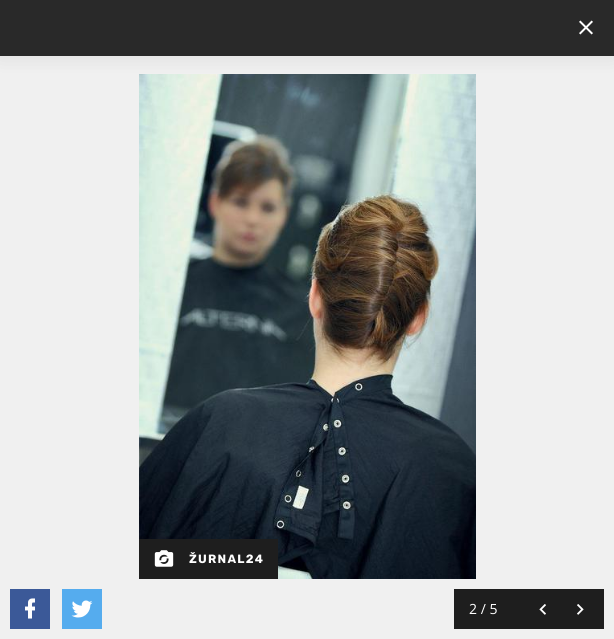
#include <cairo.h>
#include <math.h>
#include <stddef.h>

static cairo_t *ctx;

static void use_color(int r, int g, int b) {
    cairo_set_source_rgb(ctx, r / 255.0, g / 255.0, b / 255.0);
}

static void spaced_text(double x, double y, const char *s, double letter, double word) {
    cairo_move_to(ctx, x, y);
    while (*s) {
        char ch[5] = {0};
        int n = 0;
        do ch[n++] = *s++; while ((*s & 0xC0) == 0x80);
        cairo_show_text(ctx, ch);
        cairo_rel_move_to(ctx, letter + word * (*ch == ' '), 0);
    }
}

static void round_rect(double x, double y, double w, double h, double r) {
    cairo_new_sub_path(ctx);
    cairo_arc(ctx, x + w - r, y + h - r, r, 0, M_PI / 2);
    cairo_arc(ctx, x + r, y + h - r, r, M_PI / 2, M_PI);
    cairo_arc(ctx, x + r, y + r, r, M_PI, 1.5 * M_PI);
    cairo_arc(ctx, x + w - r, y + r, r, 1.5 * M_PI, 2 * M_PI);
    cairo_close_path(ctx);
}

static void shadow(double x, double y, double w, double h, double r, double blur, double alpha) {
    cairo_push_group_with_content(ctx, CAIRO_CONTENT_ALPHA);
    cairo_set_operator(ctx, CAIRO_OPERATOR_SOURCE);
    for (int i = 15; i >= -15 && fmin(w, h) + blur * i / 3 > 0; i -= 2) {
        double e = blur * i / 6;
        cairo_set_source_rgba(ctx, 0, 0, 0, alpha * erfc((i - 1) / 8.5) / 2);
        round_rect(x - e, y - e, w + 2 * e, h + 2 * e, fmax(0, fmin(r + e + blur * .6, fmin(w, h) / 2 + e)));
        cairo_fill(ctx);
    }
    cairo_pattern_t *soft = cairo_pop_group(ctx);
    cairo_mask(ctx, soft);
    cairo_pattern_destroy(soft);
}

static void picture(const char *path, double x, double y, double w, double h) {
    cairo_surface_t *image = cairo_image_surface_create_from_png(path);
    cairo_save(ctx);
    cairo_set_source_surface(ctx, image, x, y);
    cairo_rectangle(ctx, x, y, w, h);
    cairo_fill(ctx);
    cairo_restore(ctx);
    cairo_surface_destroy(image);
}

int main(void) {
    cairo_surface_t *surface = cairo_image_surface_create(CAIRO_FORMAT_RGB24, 614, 639);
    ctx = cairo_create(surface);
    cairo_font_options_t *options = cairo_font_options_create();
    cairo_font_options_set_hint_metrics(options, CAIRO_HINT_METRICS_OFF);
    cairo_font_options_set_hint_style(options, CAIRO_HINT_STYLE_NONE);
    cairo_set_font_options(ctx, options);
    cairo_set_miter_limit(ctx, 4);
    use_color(240, 240, 240);
    cairo_paint(ctx);
    picture("img4.png", 139, 74, 337, 505);
    use_color(0, 0, 0);
    shadow(-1, -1, 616, 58, 0, 10.5, 0.08);
    use_color(41, 41, 41);
    cairo_rectangle(ctx, 0, 0, 614, 56);
    cairo_fill(ctx);
    picture("img1.png", 579, 20, 14, 15);
    use_color(59, 89, 152);
    cairo_rectangle(ctx, 10, 589, 40, 40);
    cairo_fill(ctx);
    picture("img2.png", 25, 598, 10, 21);
    use_color(85, 172, 238);
    cairo_rectangle(ctx, 62, 589, 40, 40);
    cairo_fill(ctx);
    picture("img3.png", 71, 600, 22, 18);
    use_color(30, 30, 30);
    cairo_rectangle(ctx, 139, 539, 139, 40);
    cairo_fill(ctx);
    picture("img5.png", 154, 550, 20, 17);
    cairo_select_font_face(ctx, "Rubik", CAIRO_FONT_SLANT_NORMAL, CAIRO_FONT_WEIGHT_BOLD);
    cairo_set_font_size(ctx, 12);
    use_color(255, 255, 255);
    spaced_text(189, 563, "ŽURNAL24", 1.25, 0);
    use_color(30, 30, 30);
    cairo_rectangle(ctx, 454, 589, 150, 40);
    cairo_fill(ctx);
    cairo_select_font_face(ctx, "Open Sans", CAIRO_FONT_SLANT_NORMAL, CAIRO_FONT_WEIGHT_NORMAL);
    cairo_set_font_size(ctx, 14);
    use_color(255, 255, 255);
    cairo_move_to(ctx, 469, 614);
    cairo_show_text(ctx, "2 / 5");
    picture("img6.png", 539, 604, 7, 11);
    picture("img7.png", 577, 604, 7, 11);
    cairo_surface_write_to_png(surface, "result.png");
    cairo_font_options_destroy(options);
    cairo_destroy(ctx);
    cairo_surface_destroy(surface);
    return 0;
}
